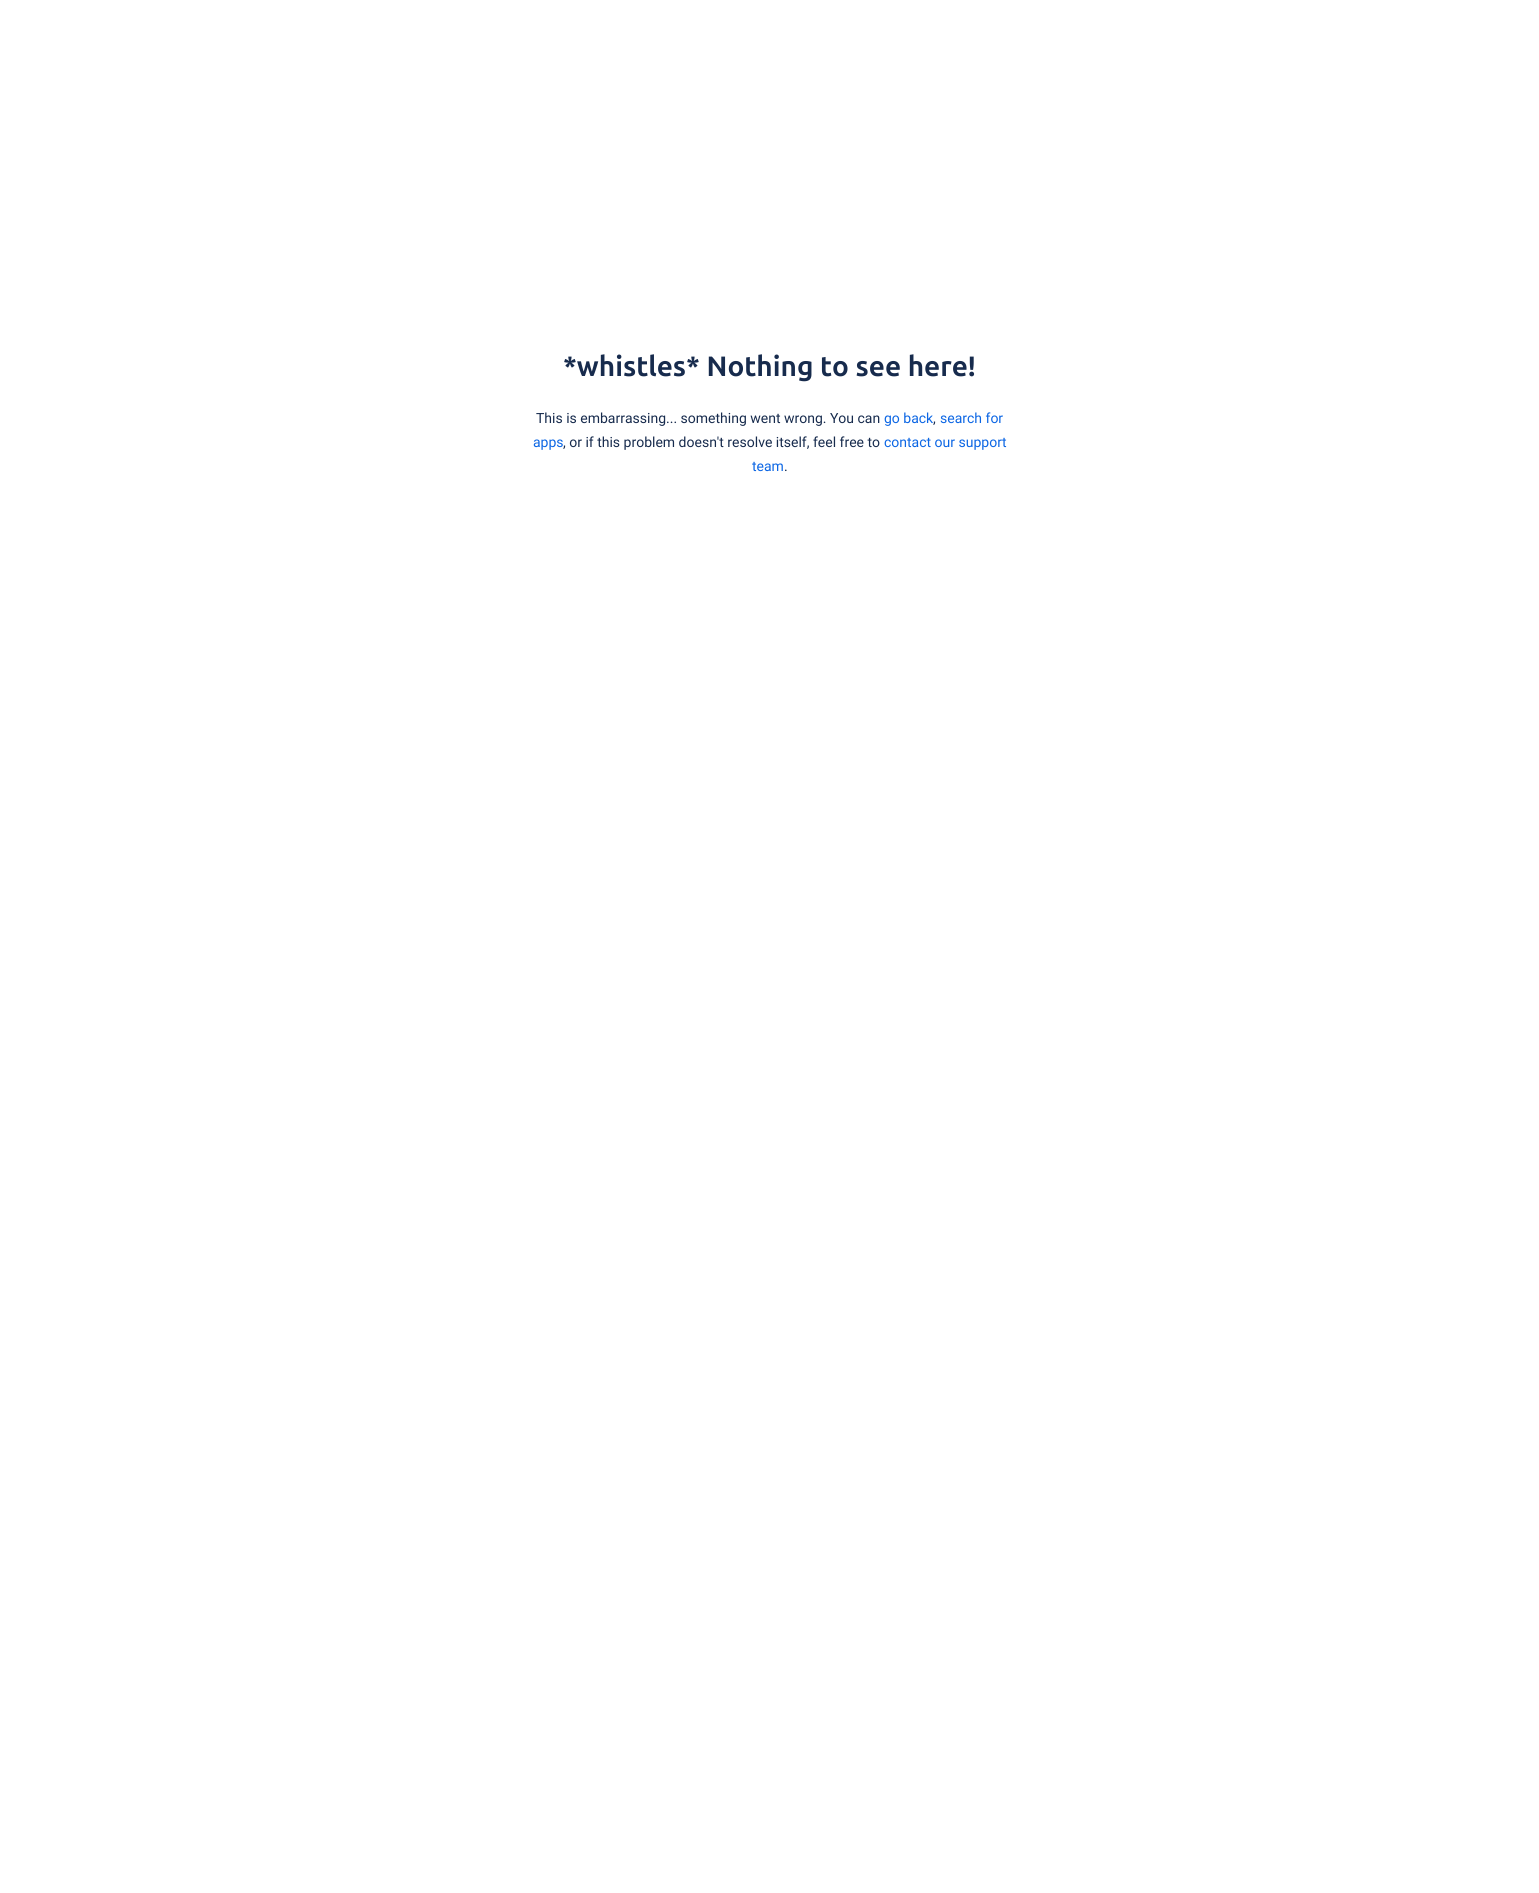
#include <cairo.h>
#include <math.h>
#include <stddef.h>

static cairo_t *ctx;

static void use_color(int r, int g, int b) {
    cairo_set_source_rgb(ctx, r / 255.0, g / 255.0, b / 255.0);
}

int main(void) {
    cairo_surface_t *surface = cairo_image_surface_create(CAIRO_FORMAT_RGB24, 1539, 1893);
    ctx = cairo_create(surface);
    cairo_font_options_t *options = cairo_font_options_create();
    cairo_font_options_set_hint_metrics(options, CAIRO_HINT_METRICS_OFF);
    cairo_font_options_set_hint_style(options, CAIRO_HINT_STYLE_NONE);
    cairo_set_font_options(ctx, options);
    cairo_set_miter_limit(ctx, 4);
    use_color(255, 255, 255);
    cairo_paint(ctx);
    cairo_select_font_face(ctx, "Ubuntu", CAIRO_FONT_SLANT_NORMAL, CAIRO_FONT_WEIGHT_BOLD);
    cairo_set_font_size(ctx, 28);
    use_color(23, 43, 77);
    cairo_move_to(ctx, 563, 376);
    cairo_show_text(ctx, "*whistles* Nothing to see here!");
    cairo_select_font_face(ctx, "Roboto", CAIRO_FONT_SLANT_NORMAL, CAIRO_FONT_WEIGHT_NORMAL);
    cairo_set_font_size(ctx, 14);
    cairo_move_to(ctx, 536, 423);
    cairo_show_text(ctx, "This is embarrassing... something went wrong. You can");
    use_color(12, 102, 228);
    cairo_move_to(ctx, 884, 423);
    cairo_show_text(ctx, "go back");
    use_color(23, 43, 77);
    cairo_move_to(ctx, 933, 423);
    cairo_show_text(ctx, ",");
    use_color(12, 102, 228);
    cairo_move_to(ctx, 940, 423);
    cairo_show_text(ctx, "search for");
    cairo_move_to(ctx, 533, 447);
    cairo_show_text(ctx, "apps");
    use_color(23, 43, 77);
    cairo_move_to(ctx, 563, 447);
    cairo_show_text(ctx, ", or if this problem doesn't resolve itself, feel free to");
    use_color(12, 102, 228);
    cairo_move_to(ctx, 884, 447);
    cairo_show_text(ctx, "contact our support");
    cairo_move_to(ctx, 752, 471);
    cairo_show_text(ctx, "team");
    use_color(23, 43, 77);
    cairo_move_to(ctx, 784, 471);
    cairo_show_text(ctx, ".");
    cairo_surface_write_to_png(surface, "result.png");
    cairo_font_options_destroy(options);
    cairo_destroy(ctx);
    cairo_surface_destroy(surface);
    return 0;
}
